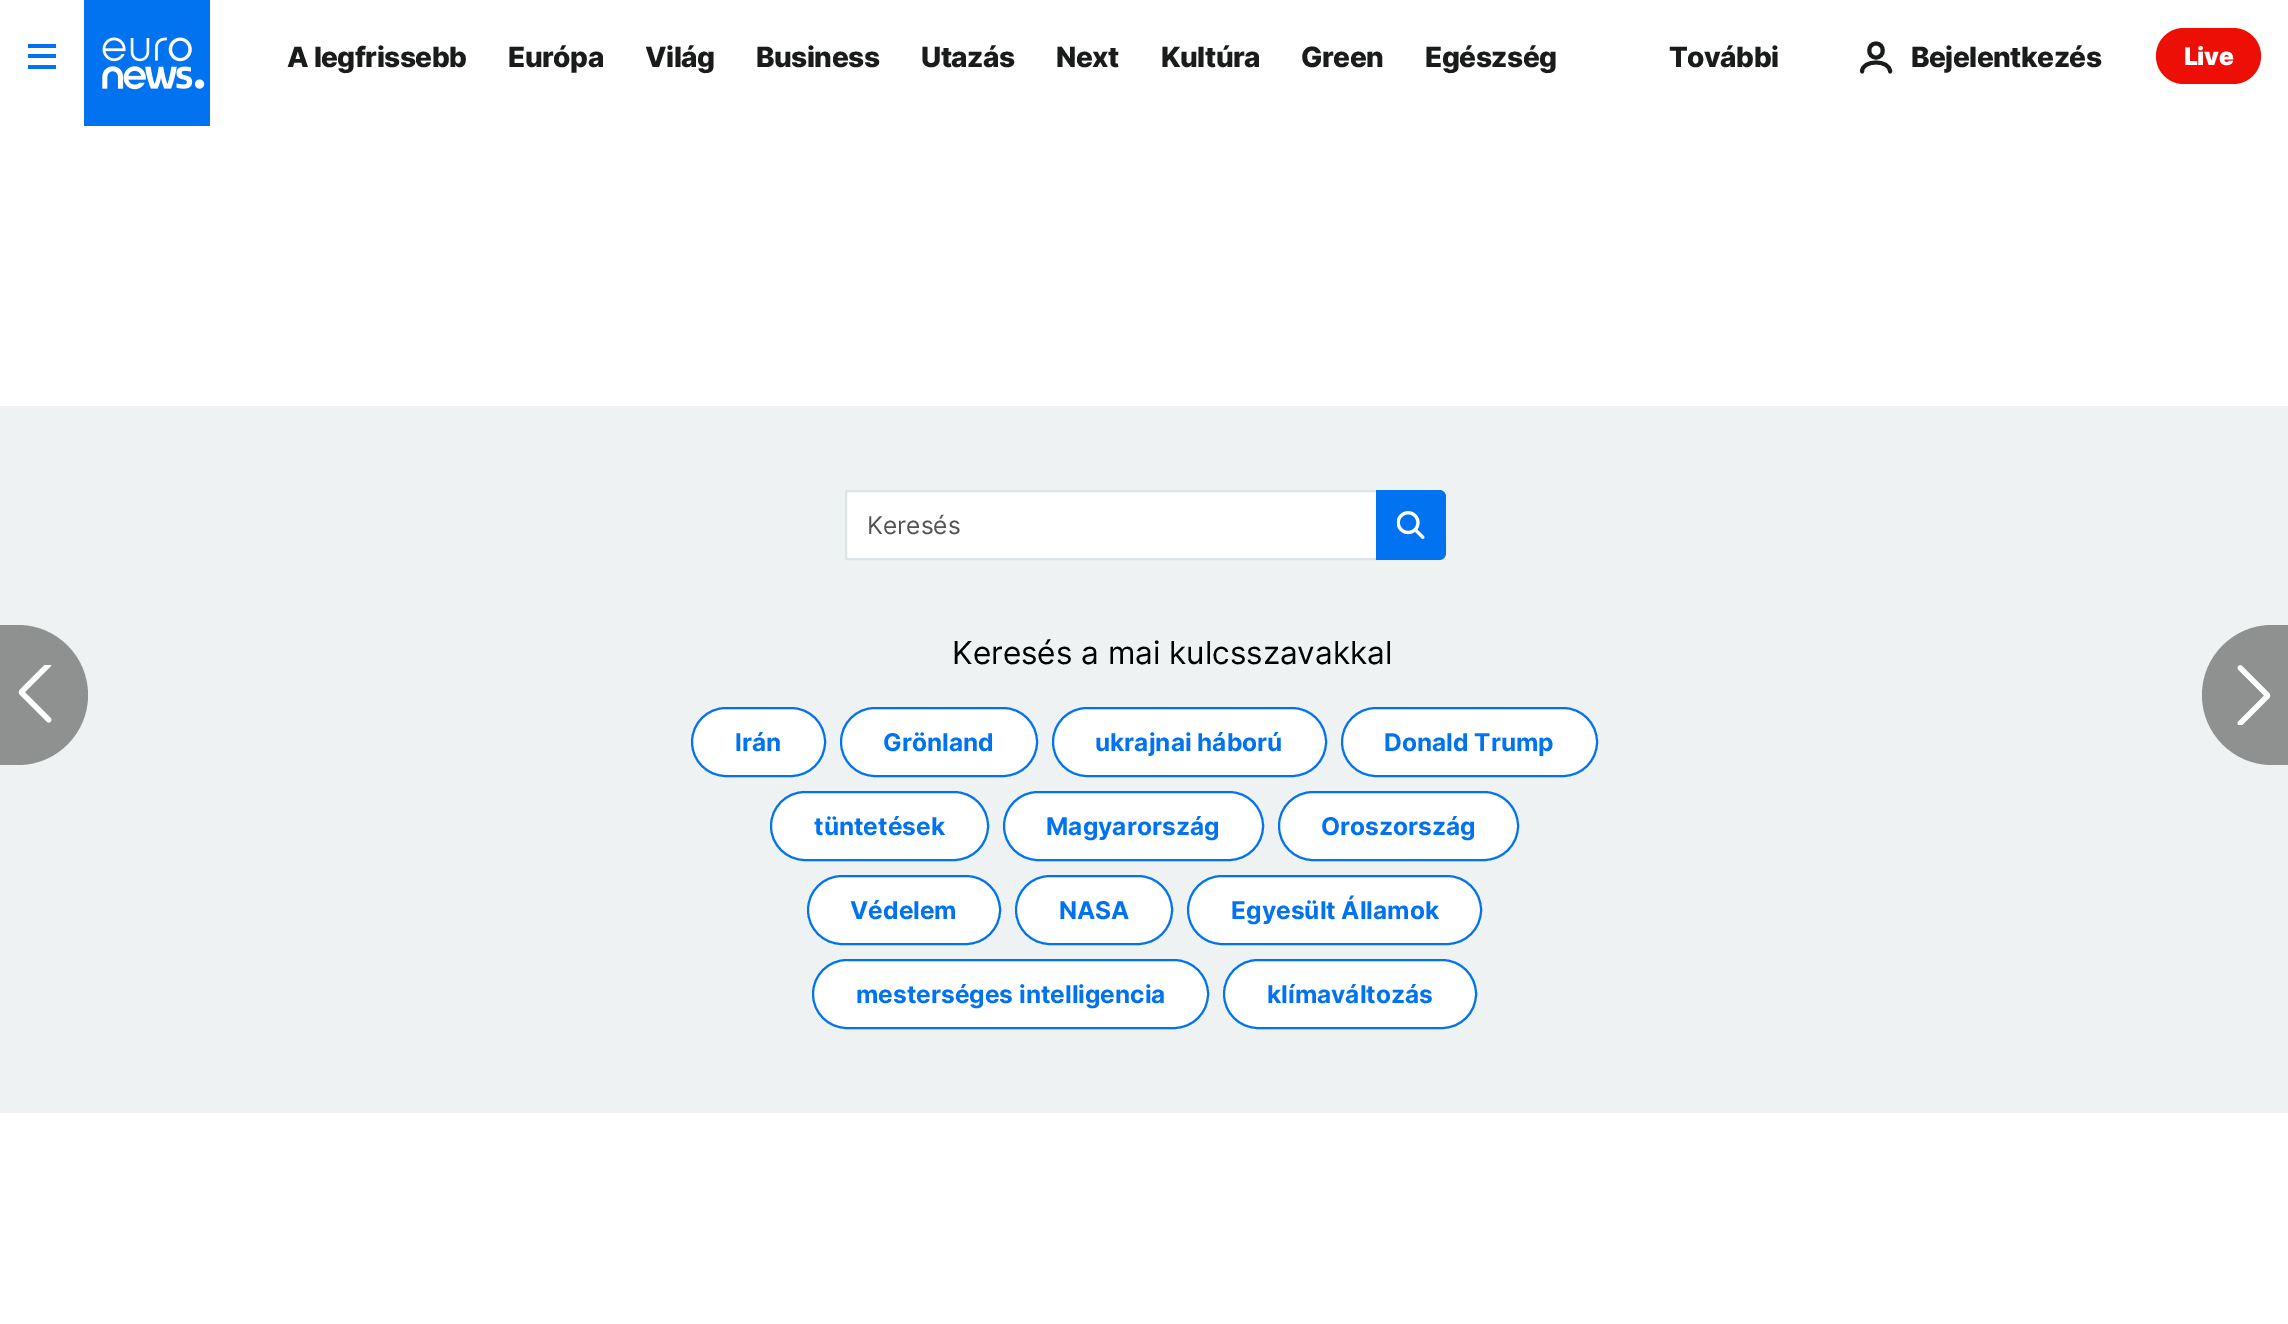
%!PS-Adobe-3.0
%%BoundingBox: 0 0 2288 1324
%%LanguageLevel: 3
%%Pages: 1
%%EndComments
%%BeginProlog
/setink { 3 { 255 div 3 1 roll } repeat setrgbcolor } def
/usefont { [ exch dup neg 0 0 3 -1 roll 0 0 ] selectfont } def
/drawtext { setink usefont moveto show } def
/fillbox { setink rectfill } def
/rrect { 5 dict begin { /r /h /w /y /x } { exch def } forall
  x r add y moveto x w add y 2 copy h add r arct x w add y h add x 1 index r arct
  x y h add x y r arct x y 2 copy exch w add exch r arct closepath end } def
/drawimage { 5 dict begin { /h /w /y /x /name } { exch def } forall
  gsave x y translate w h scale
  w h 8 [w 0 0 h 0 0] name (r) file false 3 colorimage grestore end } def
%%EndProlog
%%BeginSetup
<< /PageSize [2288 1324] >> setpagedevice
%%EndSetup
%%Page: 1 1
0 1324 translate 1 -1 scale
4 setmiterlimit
0 0 2288 1324 255 255 255 fillbox
28 44 28 4 1 114 240 fillbox
28 54 28 4 1 114 240 fillbox
28 65 28 4 1 114 240 fillbox
(assets/img1.rgb) 84 0 126 126 drawimage
/Inter-ExtraBold 28 usefont
26 27 27 setink
287 67 moveto -0.5 0 (A legfrissebb) ashow
508 67 moveto -0.5 0 (Európa) ashow
645 67 moveto -0.5 0 (Világ) ashow
756 67 moveto -0.5 0 (Business) ashow
921 67 moveto -0.5 0 (Utazás) ashow
1056 67 moveto -0.5 0 (Next) ashow
1161 67 moveto -0.5 0 (Kultúra) ashow
1301 67 moveto -0.5 0 (Green) ashow
1425 67 moveto -0.5 0 (Egészség) ashow
1669 67 moveto -0.5 0 (További) ashow
3.9 setlinewidth
1 setlinecap
1 setlinejoin
1862 71.5 moveto 1862 59.5 1890 59.5 1890 71.5 curveto 1876 57.5 moveto 1885 57.5 1885 43.5 1876 43.5 curveto 1867 43.5 1867 57.5 1876 57.5 curveto closepath stroke
1911 67 moveto -0.5 0 (Bejelentkezés) ashow
237 14 5 setink
2156 28 105 56 28 rrect fill
/Inter-Black 24.5 usefont
255 255 255 setink
2184 65 moveto -0.5 0 (Live) ashow
0 406 2288 707 238 242 243 fillbox
255 255 255 setink
846 491 moveto 1439 491 lineto 1442.5 491 1445 493.5 1445 497 curveto 1445 553 lineto 1445 556.5 1442.5 559 1439 559 curveto 846 559 lineto closepath gsave fill grestore
220 228 231 setink
2 setlinewidth
0 setlinecap
0 setlinejoin
stroke
(Keresés) 867 534 /Inter-Regular 24.5 81 82 82 drawtext
1 114 240 setink
1376 490 moveto 1439 490 lineto 1443 490 1446 493 1446 497 curveto 1446 553 lineto 1446 557 1443 560 1439 560 curveto 1376 560 lineto closepath fill
(assets/img2.rgb) 1397 511 28 28 drawimage
(Keresés a mai kulcsszavakkal) 952 664 /Inter-Regular 31.5 0 0 0 drawtext
255 255 255 setink
692 708 133 68 34 rrect gsave fill grestore
1 114 240 setink
stroke
(Irán) 735 751 /Inter-Bold 24.5 1 114 240 drawtext
255 255 255 setink
841 708 196 68 34 rrect gsave fill grestore
1 114 240 setink
stroke
(Grönland) 883 751 /Inter-Bold 24.5 1 114 240 drawtext
255 255 255 setink
1053 708 273 68 34 rrect gsave fill grestore
1 114 240 setink
stroke
(ukrajnai háború) 1095 751 /Inter-Bold 24.5 1 114 240 drawtext
255 255 255 setink
1342 708 255 68 34 rrect gsave fill grestore
1 114 240 setink
stroke
(Donald Trump) 1384 751 /Inter-Bold 24.5 1 114 240 drawtext
255 255 255 setink
771 792 217 68 34 rrect gsave fill grestore
1 114 240 setink
stroke
(tüntetések) 814 835 /Inter-Bold 24.5 1 114 240 drawtext
255 255 255 setink
1004 792 259 68 34 rrect gsave fill grestore
1 114 240 setink
stroke
(Magyarország) 1046 835 /Inter-Bold 24.5 1 114 240 drawtext
255 255 255 setink
1279 792 239 68 34 rrect gsave fill grestore
1 114 240 setink
stroke
(Oroszország) 1321 835 /Inter-Bold 24.5 1 114 240 drawtext
255 255 255 setink
808 876 192 68 34 rrect gsave fill grestore
1 114 240 setink
stroke
(Védelem) 850 919 /Inter-Bold 24.5 1 114 240 drawtext
255 255 255 setink
1016 876 156 68 34 rrect gsave fill grestore
1 114 240 setink
stroke
(NASA) 1059 919 /Inter-Bold 24.5 1 114 240 drawtext
255 255 255 setink
1188 876 293 68 34 rrect gsave fill grestore
1 114 240 setink
stroke
(Egyesült Államok) 1231 919 /Inter-Bold 24.5 1 114 240 drawtext
255 255 255 setink
813 960 395 68 34 rrect gsave fill grestore
1 114 240 setink
stroke
(mesterséges intelligencia) 856 1003 /Inter-Bold 24.5 1 114 240 drawtext
255 255 255 setink
1224 960 252 68 34 rrect gsave fill grestore
1 114 240 setink
stroke
(klímaváltozás) 1267 1003 /Inter-Bold 24.5 1 114 240 drawtext
143 145 145 setink
0 625 moveto 18 625 lineto 56.5 625 88 656.5 88 695 curveto 88 733.5 56.5 765 18 765 curveto 0 765 lineto closepath fill
(assets/img3.rgb) 18 665 34 58 drawimage
2272 625 moveto 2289 625 lineto 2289 765 lineto 2272 765 lineto 2233.5 765 2202 733.5 2202 695 curveto 2202 656.5 2233.5 625 2272 625 curveto closepath fill
(assets/img4.rgb) 2237 665 34 60 drawimage
showpage
%%EOF
